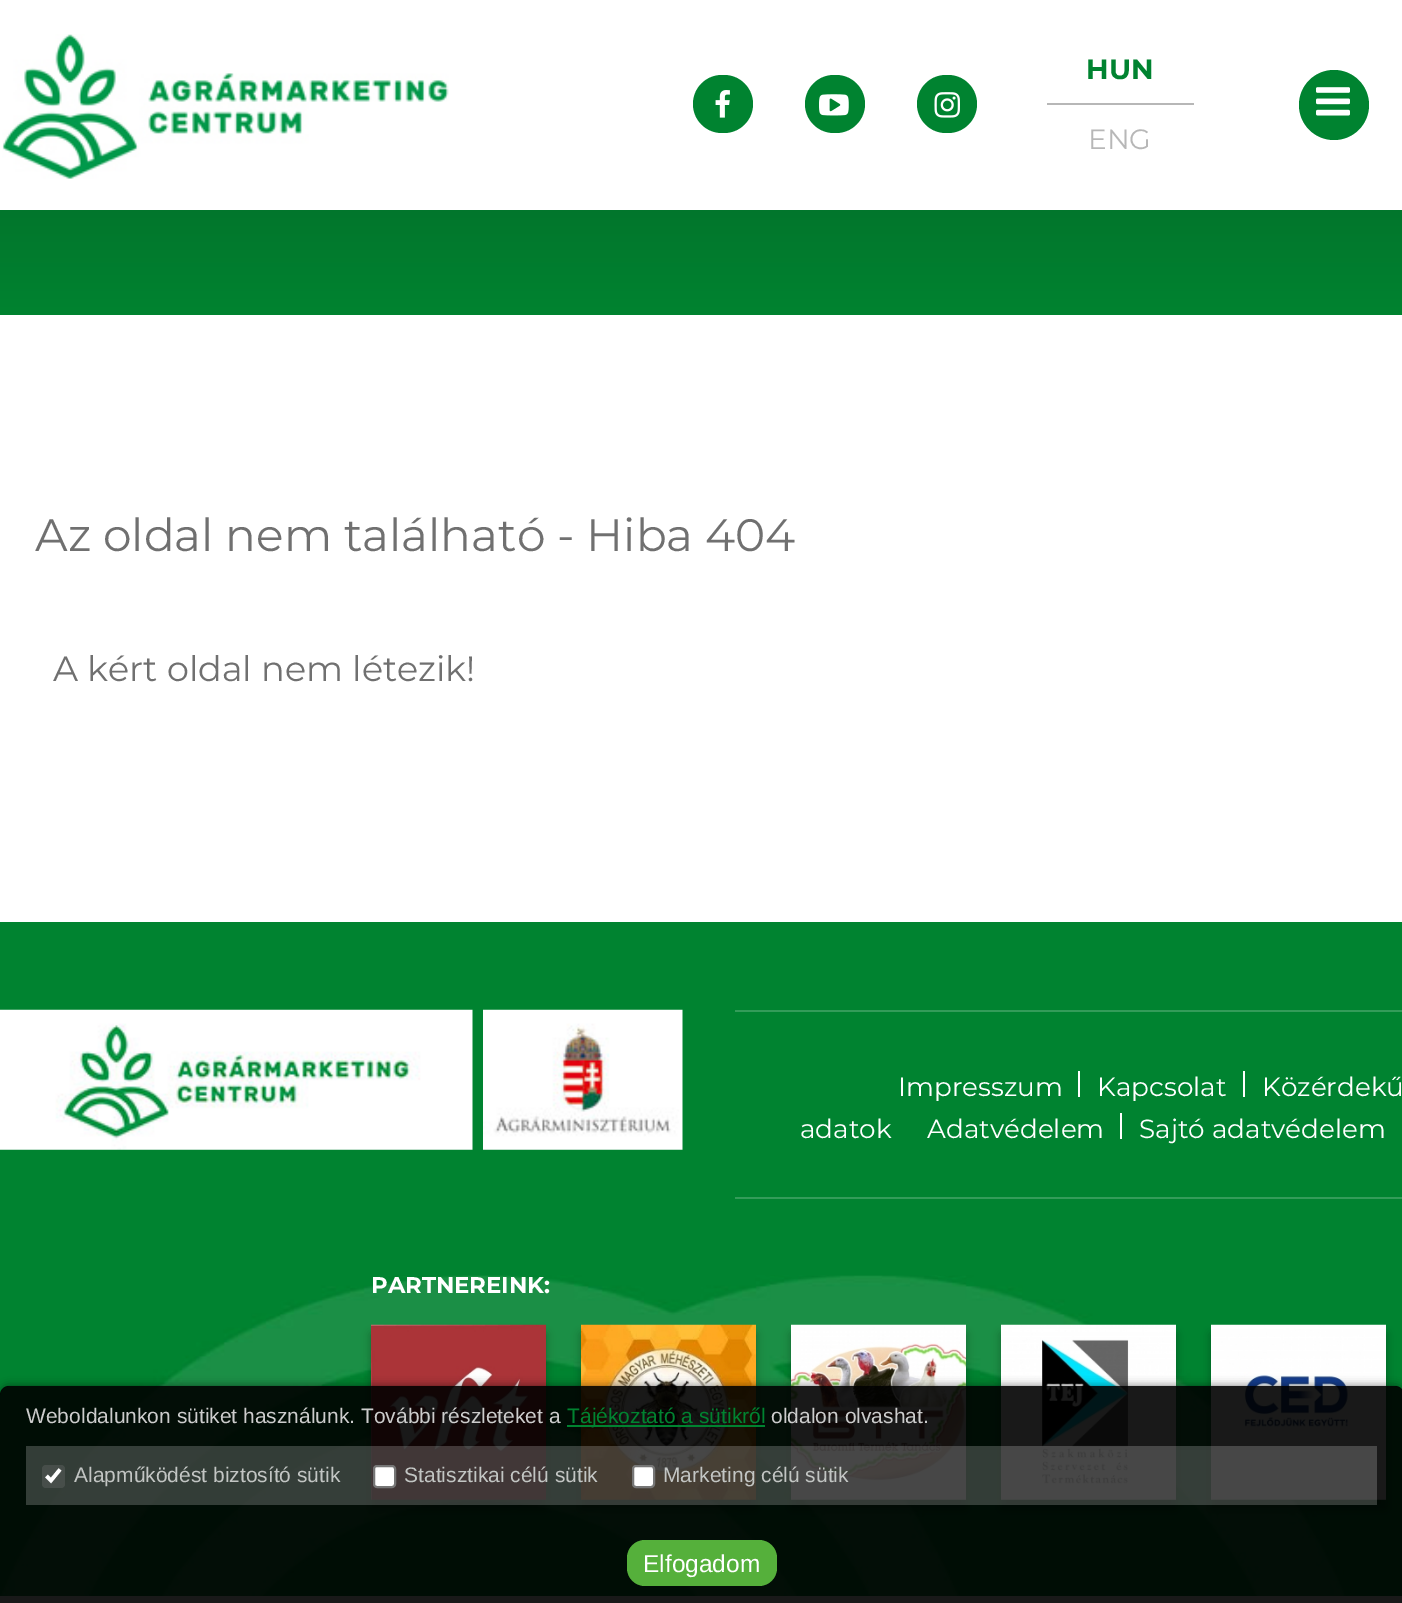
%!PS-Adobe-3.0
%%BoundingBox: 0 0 1402 1603
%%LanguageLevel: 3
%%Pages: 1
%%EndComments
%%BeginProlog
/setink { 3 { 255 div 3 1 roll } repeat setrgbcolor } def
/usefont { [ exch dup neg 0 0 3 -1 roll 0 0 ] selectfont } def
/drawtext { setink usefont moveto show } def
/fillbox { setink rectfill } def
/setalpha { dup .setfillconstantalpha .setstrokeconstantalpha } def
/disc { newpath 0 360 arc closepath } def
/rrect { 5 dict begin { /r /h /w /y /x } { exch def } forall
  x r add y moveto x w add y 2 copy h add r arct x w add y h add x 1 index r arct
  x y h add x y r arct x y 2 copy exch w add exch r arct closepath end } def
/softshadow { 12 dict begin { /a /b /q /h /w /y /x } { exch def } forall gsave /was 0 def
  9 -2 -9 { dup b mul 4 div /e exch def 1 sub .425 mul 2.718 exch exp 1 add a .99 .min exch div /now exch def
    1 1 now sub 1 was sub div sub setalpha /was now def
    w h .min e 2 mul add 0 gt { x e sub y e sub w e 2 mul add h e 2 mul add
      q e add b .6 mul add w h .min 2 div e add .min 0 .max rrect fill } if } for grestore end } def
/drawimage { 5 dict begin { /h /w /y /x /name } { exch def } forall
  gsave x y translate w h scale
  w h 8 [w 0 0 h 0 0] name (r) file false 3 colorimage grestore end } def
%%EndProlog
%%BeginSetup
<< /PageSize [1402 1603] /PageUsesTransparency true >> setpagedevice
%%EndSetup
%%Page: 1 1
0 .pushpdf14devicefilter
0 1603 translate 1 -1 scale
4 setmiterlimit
0 0 1402 1603 255 255 255 fillbox
(assets/img1.rgb) 2 34 447 145 drawimage
0 131 48 setink
693 75 60 58 29 rrect fill
(assets/img2.rgb) 715 90 15 28 drawimage
805 75 60 58 29 rrect fill
(assets/img3.rgb) 819 94 30 22 drawimage
917 75 60 58 29 rrect fill
(assets/img4.rgb) 934 92 26 26 drawimage
1047 103 147 2 183 183 183 fillbox
(HUN) 1086 79 /Montserrat-Bold 28 0 131 48 drawtext
(ENG) 1088 149 /Montserrat-Regular 28 183 183 183 drawtext
0 131 48 setink
1334 105 35 disc fill
(assets/img5.rgb) 1316 87 34 29 drawimage
gsave 0 210 moveto 1402 210 lineto 1402 315 lineto 0 315 lineto closepath clip newpath
<< /ShadingType 2 /ColorSpace /DeviceRGB /Coords [702 210 702 315] /Extend [true true] /Function << /FunctionType 2 /Domain [0 1] /C0 [0.008 0.463 0.173] /C1 [0 0.514 0.188] /N 1 >> >> shfill grestore
(Az oldal nem található - Hiba 404) 35 551 /Montserrat-Regular 45.5 112 112 112 drawtext
(A kért oldal nem létezik!) 53 681 /Montserrat-Regular 35 112 112 112 drawtext
0 922 1402 674 0 131 48 fillbox
(assets/img6.rgb) 0 1275 1346 321 drawimage
(assets/img7.rgb) 0 1009 473 141 drawimage
(assets/img8.rgb) 483 1009 200 141 drawimage
735 1010 667 2 51 156 89 fillbox
735 1197 667 2 51 156 89 fillbox
(Impresszum) 898 1096 /Montserrat-Regular 26.25 255 255 255 drawtext
1078 1071 2 26 255 255 255 fillbox
(Kapcsolat) 1097 1096 /Montserrat-Regular 26.25 255 255 255 drawtext
1243 1071 2 26 255 255 255 fillbox
(Közérdekű) 1262 1096 /Montserrat-Regular 26.25 255 255 255 drawtext
(adatok) 800 1138 /Montserrat-Regular 26.25 255 255 255 drawtext
(Adatvédelem) 927 1138 /Montserrat-Regular 26.25 255 255 255 drawtext
1120 1113 2 26 255 255 255 fillbox
(Sajtó adatvédelem) 1139 1138 /Montserrat-Regular 26.25 255 255 255 drawtext
(PARTNEREINK:) 371 1293 /Montserrat-Bold 22.75 255 255 255 drawtext
0 0 0 setink
371 1334 175 175 0 4.5 0.3 softshadow
(assets/img9.rgb) 371 1324 175 176 drawimage
581 1334 175 175 0 4.5 0.3 softshadow
(assets/img10.rgb) 581 1324 175 176 drawimage
791 1334 175 175 0 4.5 0.3 softshadow
(assets/img11.rgb) 791 1324 175 176 drawimage
1001 1334 175 175 0 4.5 0.3 softshadow
(assets/img12.rgb) 1001 1324 175 176 drawimage
1211 1334 175 175 0 4.5 0.3 softshadow
(assets/img13.rgb) 1211 1324 175 176 drawimage
gsave
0 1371 moveto 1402 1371 lineto 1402 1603 lineto 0 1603 lineto closepath 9 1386 moveto 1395 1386 lineto 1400 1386 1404 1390 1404 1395 curveto 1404 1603 lineto 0 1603 lineto 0 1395 lineto 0 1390 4 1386 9 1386 curveto closepath eoclip newpath
0 1386 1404 217 9 4.5 0.5 softshadow
grestore
0.9 setalpha
9 1386 moveto 1395 1386 lineto 1400 1386 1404 1390 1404 1395 curveto 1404 1603 lineto 0 1603 lineto 0 1395 lineto 0 1390 4 1386 9 1386 curveto closepath fill
1 setalpha
(Weboldalunkon sütiket használunk. További részleteket a) 26 1423 /LiberationSans-Regular 21 204 204 204 drawtext
567 1425 198 2 0 131 48 fillbox
(Tájékoztató a sütikről) 567 1423 /LiberationSans-Regular 21 0 131 48 drawtext
(oldalon olvashat.) 771 1423 /LiberationSans-Regular 21 204 204 204 drawtext
0.2 setalpha
26 1446 1351 59 255 255 255 fillbox
1 setalpha
71 78 74 setink
42 1465 23 23 4 rrect fill
255 255 255 setink
3.6 setlinewidth
46.5 1476 moveto 51 1480.5 lineto 60 1469.5 lineto stroke
(Alapműködést biztosító sütik) 74 1482 /LiberationSans-Regular 21 194 197 195 drawtext
255 255 255 setink
374 1466 21 21 3 rrect gsave fill grestore
118 118 118 setink
2 setlinewidth
stroke
(Statisztikai célú sütik) 404 1482 /LiberationSans-Regular 21 194 197 195 drawtext
255 255 255 setink
633 1466 21 21 3 rrect gsave fill grestore
118 118 118 setink
stroke
(Marketing célú sütik) 663 1482 /LiberationSans-Regular 21 194 197 195 drawtext
85 176 59 setink
627 1540 150 46 18 rrect fill
(Elfogadom) 643 1572 /LiberationSans-Regular 24.5 255 255 255 drawtext
.poppdf14devicefilter showpage
%%EOF
